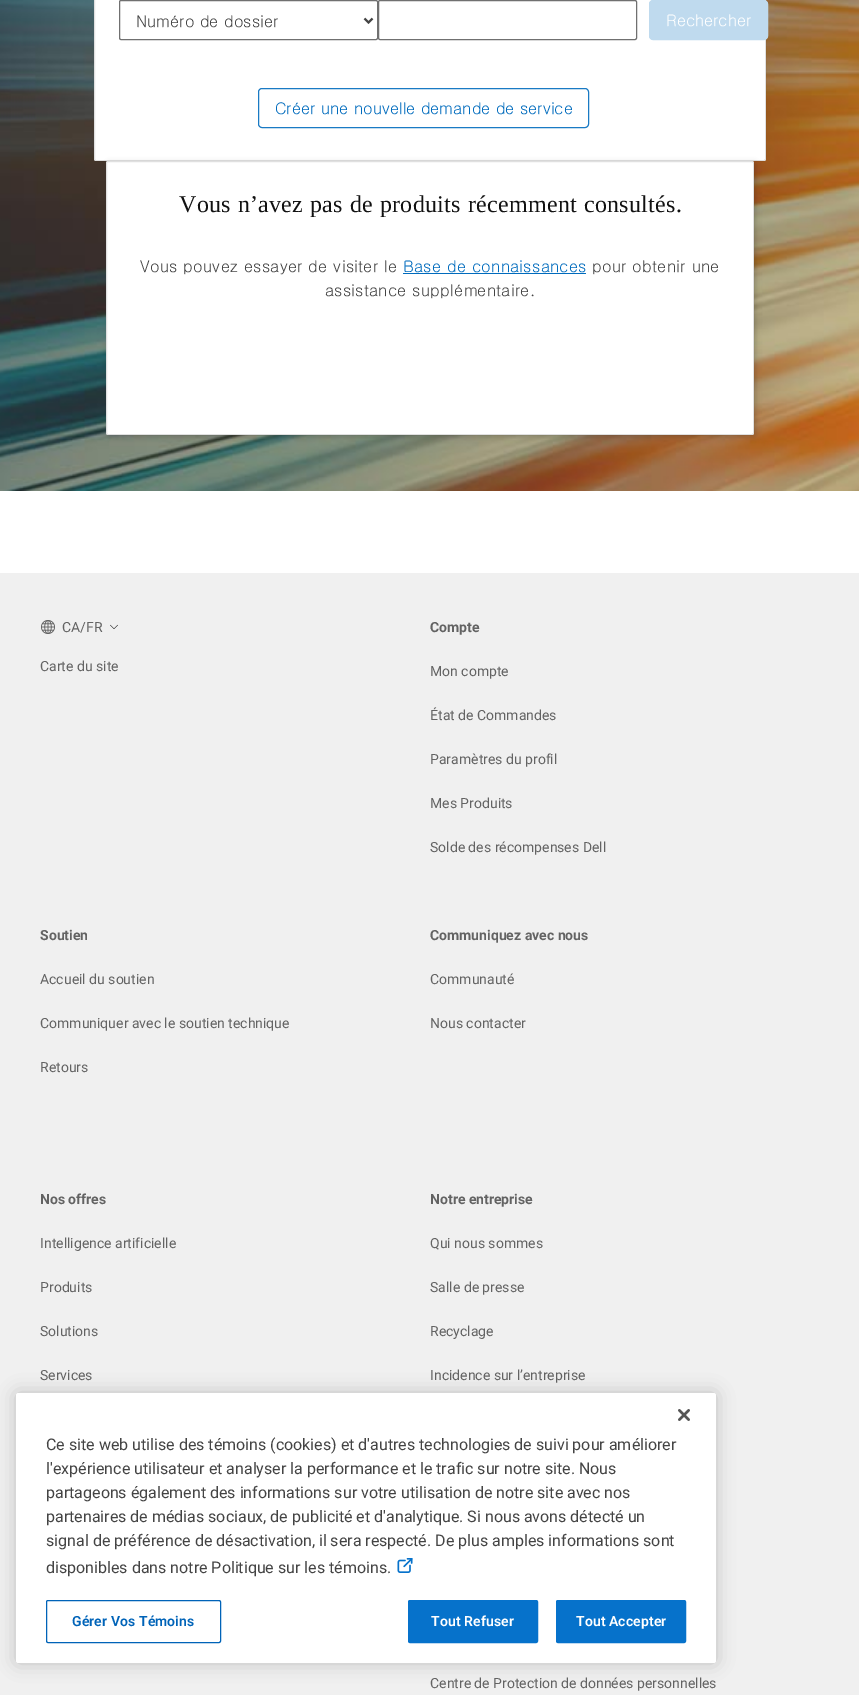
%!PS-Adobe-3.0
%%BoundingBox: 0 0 859 1695
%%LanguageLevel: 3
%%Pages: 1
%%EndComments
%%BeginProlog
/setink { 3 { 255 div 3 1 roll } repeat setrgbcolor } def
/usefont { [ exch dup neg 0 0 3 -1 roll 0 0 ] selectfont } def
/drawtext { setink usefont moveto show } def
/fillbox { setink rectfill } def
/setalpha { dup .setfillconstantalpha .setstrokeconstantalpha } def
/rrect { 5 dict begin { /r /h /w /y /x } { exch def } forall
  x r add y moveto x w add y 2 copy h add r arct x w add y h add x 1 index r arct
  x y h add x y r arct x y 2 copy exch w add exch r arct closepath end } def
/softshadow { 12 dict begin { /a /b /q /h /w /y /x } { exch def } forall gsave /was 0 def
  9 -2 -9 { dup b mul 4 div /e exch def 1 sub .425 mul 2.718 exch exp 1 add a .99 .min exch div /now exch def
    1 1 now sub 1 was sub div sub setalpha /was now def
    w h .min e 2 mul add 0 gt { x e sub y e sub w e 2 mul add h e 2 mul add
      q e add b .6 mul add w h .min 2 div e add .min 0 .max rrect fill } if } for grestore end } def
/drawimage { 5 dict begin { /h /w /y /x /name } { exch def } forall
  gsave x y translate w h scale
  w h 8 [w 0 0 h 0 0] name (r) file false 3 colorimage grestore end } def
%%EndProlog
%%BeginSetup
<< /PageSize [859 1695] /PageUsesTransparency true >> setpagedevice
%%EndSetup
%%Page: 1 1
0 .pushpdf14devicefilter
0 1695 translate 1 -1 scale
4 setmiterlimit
0 0 859 1695 255 255 255 fillbox
(assets/img1.rgb) 0 0 859 491 drawimage
94 -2 672 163 2 rrect fill
0.12 setalpha
0 0 0 setink
94.5 -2.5 671 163 1.5 rrect stroke
1 setalpha
112 112 112 setink
119.5 0.5 258 39 1.5 rrect stroke
68 68 68 setink
2 setlinewidth
364.5 18.5 moveto 368.5 22.5 lineto 372.5 18.5 lineto stroke
(Numéro de dossier) 136 27 /Gulim-Regular 16 68 68 68 drawtext
112 112 112 setink
1 setlinewidth
378.5 0.5 258 39 1.5 rrect stroke
191 218 238 setink
649.5 0.5 118 39 3.5 rrect gsave fill grestore
stroke
(Rechercher) 666 26 /Gulim-Regular 16 255 255 255 drawtext
26 122 196 setink
258.5 88.5 330 39 3.5 rrect stroke
(Créer une nouvelle demande de service) 275 114 /Gulim-Regular 16 0 107 189 drawtext
17 17 17 setink
108 163 648 274 2 3 0.2 softshadow
255 255 255 setink
106 161 648 274 2 rrect fill
0.12 setalpha
0 0 0 setink
106.5 161.5 647 273 1.5 rrect stroke
/LiberationSerif-Regular 24 usefont
1 setalpha
17 17 17 setink
179 212 moveto 0.5 0 32 0.3 0 (Vous n’avez pas de produits récemment consultés.) awidthshow
/Gulim-Regular 16 usefont
68 68 68 setink
140 272 moveto 0.25 0 32 0.2 0 (Vous pouvez essayer de visiter le) awidthshow
0 107 189 setink
403 272 moveto 0.25 0 32 0.2 0 (Base de connaissances) awidthshow
403 273 183 1 0 107 189 fillbox
68 68 68 setink
592 272 moveto 0.25 0 32 0.2 0 (pour obtenir une) awidthshow
325 296 moveto 0.25 0 32 0.2 0 (assistance supplémentaire.) awidthshow
0 573 859 1122 240 240 240 fillbox
(assets/img2.rgb) 41 620 14 14 drawimage
(CA/FR) 62 632 /Roboto-Regular 14 99 99 99 drawtext
(assets/img3.rgb) 110 624 8 5 drawimage
(Carte du site) 40 671 /Roboto-Regular 14 99 99 99 drawtext
(Compte) 430 632 /Roboto-Bold 14 99 99 99 drawtext
(Mon compte) 430 676 /Roboto-Regular 14 99 99 99 drawtext
(État de Commandes) 430 720 /Roboto-Regular 14 99 99 99 drawtext
(Paramètres du profil) 430 764 /Roboto-Regular 14 99 99 99 drawtext
(Mes Produits) 430 808 /Roboto-Regular 14 99 99 99 drawtext
(Solde des récompenses Dell) 430 852 /Roboto-Regular 14 99 99 99 drawtext
(Soutien) 40 940 /Roboto-Bold 14 99 99 99 drawtext
(Accueil du soutien) 40 984 /Roboto-Regular 14 99 99 99 drawtext
(Communiquer avec le soutien technique) 40 1028 /Roboto-Regular 14 99 99 99 drawtext
(Retours) 40 1072 /Roboto-Regular 14 99 99 99 drawtext
(Communiquez avec nous) 430 940 /Roboto-Bold 14 99 99 99 drawtext
(Communauté) 430 984 /Roboto-Regular 14 99 99 99 drawtext
(Nous contacter) 430 1028 /Roboto-Regular 14 99 99 99 drawtext
(Nos offres) 40 1204 /Roboto-Bold 14 99 99 99 drawtext
(Intelligence artificielle) 40 1248 /Roboto-Regular 14 99 99 99 drawtext
(Produits) 40 1292 /Roboto-Regular 14 99 99 99 drawtext
(Solutions) 40 1336 /Roboto-Regular 14 99 99 99 drawtext
(Services) 40 1380 /Roboto-Regular 14 99 99 99 drawtext
(Notre entreprise) 430 1204 /Roboto-Bold 14 99 99 99 drawtext
(Qui nous sommes) 430 1248 /Roboto-Regular 14 99 99 99 drawtext
(Salle de presse) 430 1292 /Roboto-Regular 14 99 99 99 drawtext
(Recyclage) 430 1336 /Roboto-Regular 14 99 99 99 drawtext
(Incidence sur l’entreprise) 430 1380 /Roboto-Regular 14 99 99 99 drawtext
(Centre de Protection de données personnelles) 430 1688 /Roboto-Regular 14 99 99 99 drawtext
0 0 0 setink
16 1393 700 270 2.5 9 0.2 softshadow
255 255 255 setink
16 1393 700 270 2.5 rrect fill
(assets/img4.rgb) 678 1409 12 12 drawimage
(Ce site web utilise des témoins \(cookies\) et d'autres technologies de suivi pour améliorer) 46 1450 /Roboto-Regular 16 68 68 68 drawtext
(l'expérience utilisateur et analyser la performance et le trafic sur notre site. Nous) 46 1474 /Roboto-Regular 16 68 68 68 drawtext
(partageons également des informations sur votre utilisation de notre site avec nos) 46 1498 /Roboto-Regular 16 68 68 68 drawtext
(partenaires de médias sociaux, de publicité et d'analytique. Si nous avons détecté un) 46 1522 /Roboto-Regular 16 68 68 68 drawtext
(signal de préférence de désactivation, il sera respecté. De plus amples informations sont) 46 1546 /Roboto-Regular 16 68 68 68 drawtext
(disponibles dans notre Politique sur les témoins.) 46 1573 /Roboto-Regular 16 68 68 68 drawtext
(assets/img5.rgb) 397 1558 16 15 drawimage
0 99 184 setink
46.5 1600.5 174 42 1.5 rrect stroke
/Roboto-SemiBold 14 usefont
72 1626 moveto 0.1 0 (Gérer Vos Témoins) ashow
6 114 203 setink
408.5 1600.5 129 42 1.5 rrect gsave fill grestore
stroke
255 255 255 setink
431 1626 moveto 0.1 0 (Tout Refuser) ashow
6 114 203 setink
556.5 1600.5 129 42 1.5 rrect gsave fill grestore
stroke
255 255 255 setink
576 1626 moveto 0.1 0 (Tout Accepter) ashow
.poppdf14devicefilter showpage
%%EOF
